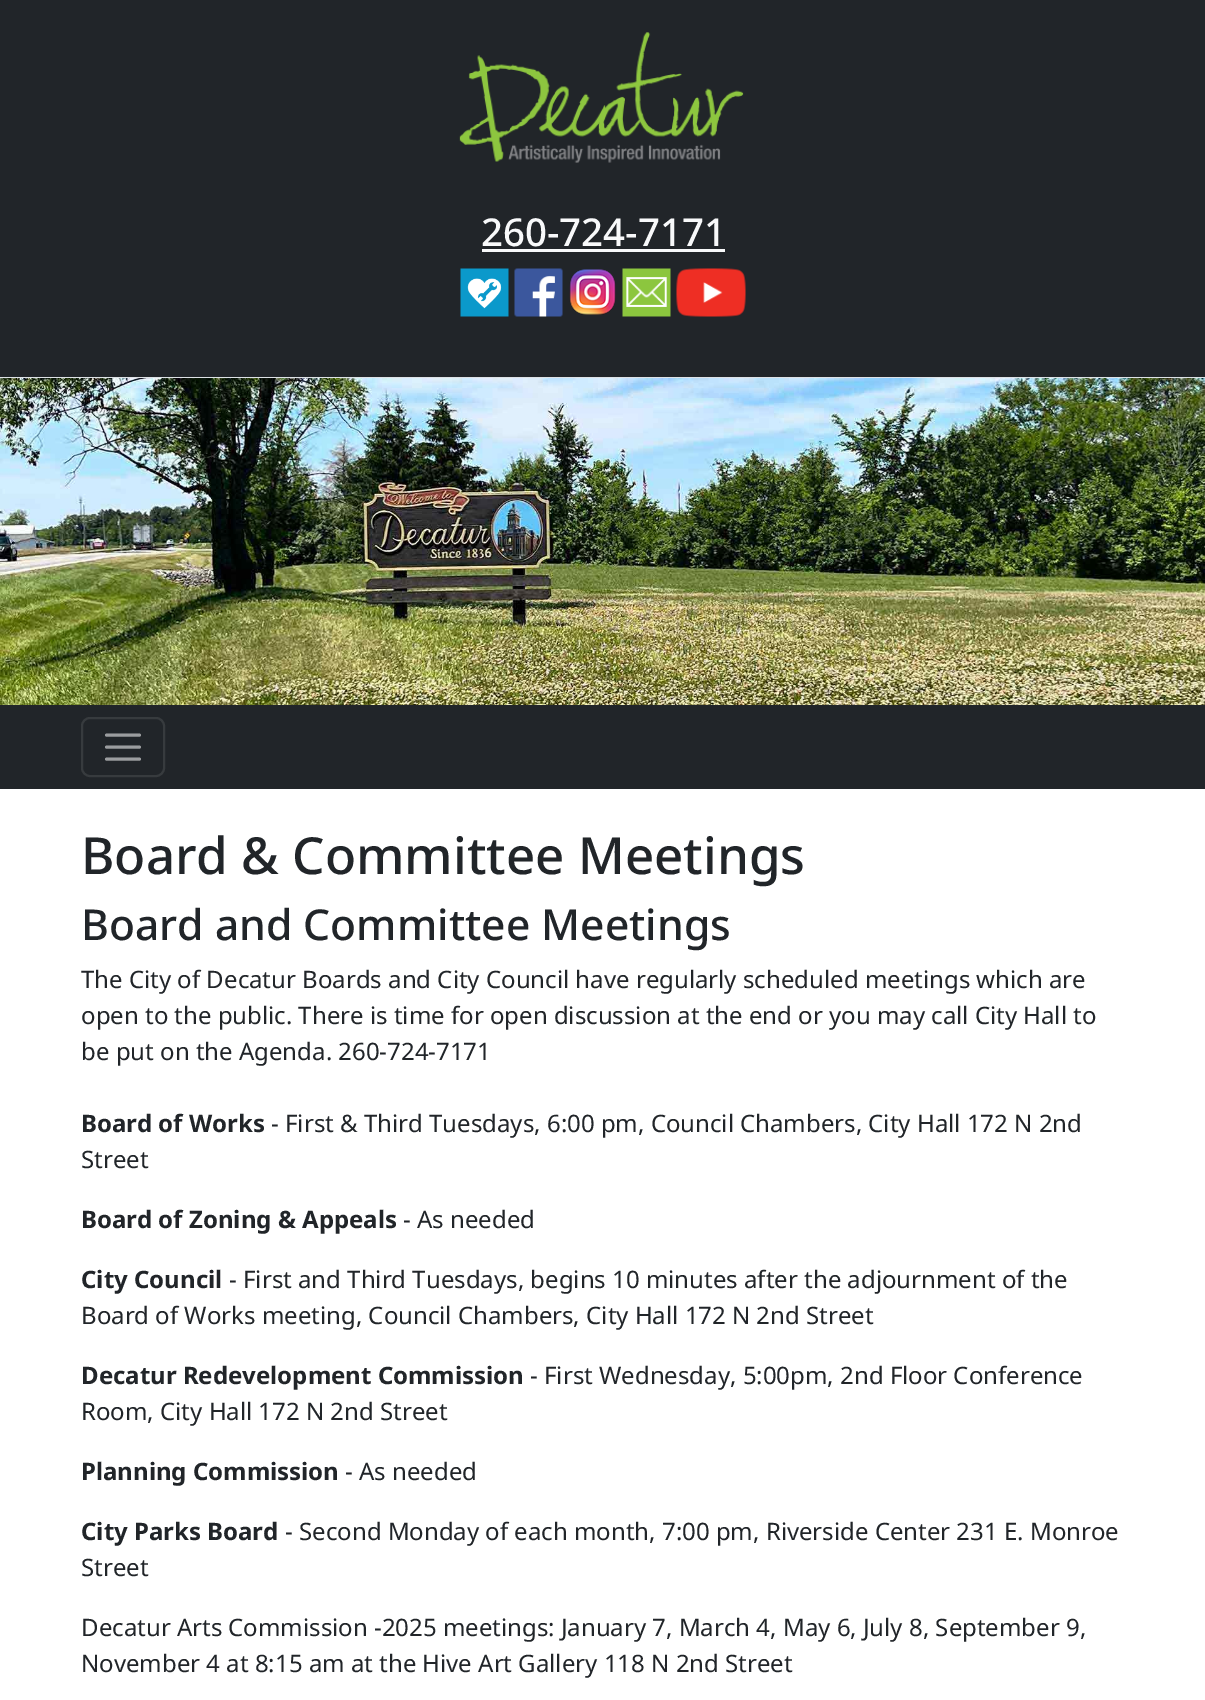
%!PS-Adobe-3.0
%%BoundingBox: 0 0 1205 1700
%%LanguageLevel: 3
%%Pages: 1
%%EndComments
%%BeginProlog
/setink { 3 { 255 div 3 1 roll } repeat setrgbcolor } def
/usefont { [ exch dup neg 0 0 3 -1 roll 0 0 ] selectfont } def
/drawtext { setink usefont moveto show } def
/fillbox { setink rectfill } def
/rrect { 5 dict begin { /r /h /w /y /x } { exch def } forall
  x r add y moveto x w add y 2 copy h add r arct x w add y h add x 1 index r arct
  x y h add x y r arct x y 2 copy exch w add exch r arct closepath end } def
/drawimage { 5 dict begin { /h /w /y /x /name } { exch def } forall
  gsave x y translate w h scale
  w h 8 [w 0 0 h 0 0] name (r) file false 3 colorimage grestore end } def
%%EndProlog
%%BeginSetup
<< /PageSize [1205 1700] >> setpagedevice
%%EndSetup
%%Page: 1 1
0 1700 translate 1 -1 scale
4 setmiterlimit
0 0 1205 1700 255 255 255 fillbox
0 0 1205 377 33 37 41 fillbox
0 377 1205 1 222 226 230 fillbox
(assets/img1.rgb) 459 32 285 131 drawimage
(260-724-7171) 481 246 /NotoSans-Medium 38.5 248 249 250 drawtext
482 249 243 3 248 249 250 fillbox
(assets/img2.rgb) 460 268 49 49 drawimage
(assets/img3.rgb) 514 268 49 49 drawimage
(assets/img4.rgb) 569 269 47 46 drawimage
(assets/img5.rgb) 622 268 49 49 drawimage
(assets/img6.rgb) 676 268 70 49 drawimage
(assets/img7.rgb) 0 378 1205 327 drawimage
0 705 1205 84 33 37 41 fillbox
55 59 62 setink
2 setlinewidth
82 718 82 58 8 rrect stroke
155 157 159 setink
3 setlinewidth
1 setlinecap
106.5 735 moveto 139.5 735 lineto 106.5 747 moveto 139.5 747 lineto 106.5 759 moveto 139.5 759 lineto stroke
(Board & Committee Meetings) 81 874 /NotoSans-Medium 51.1 33 37 41 drawtext
(Board and Committee Meetings) 81 940 /NotoSans-Medium 42.6 33 37 41 drawtext
(The City of Decatur Boards and City Council have regularly scheduled meetings which are) 81 988 /NotoSans-Regular 24 33 37 41 drawtext
(open to the public. There is time for open discussion at the end or you may call City Hall to) 81 1024 /NotoSans-Regular 24 33 37 41 drawtext
(be put on the Agenda. 260-724-7171) 81 1060 /NotoSans-Regular 24 33 37 41 drawtext
(Board of Works) 81 1132 /NotoSans-Bold 24 33 37 41 drawtext
(- First & Third Tuesdays, 6:00 pm, Council Chambers, City Hall 172 N 2nd) 271 1132 /NotoSans-Regular 24 33 37 41 drawtext
(Street) 81 1168 /NotoSans-Regular 24 33 37 41 drawtext
(Board of Zoning & Appeals) 81 1228 /NotoSans-Bold 24 33 37 41 drawtext
(- As needed) 403 1228 /NotoSans-Regular 24 33 37 41 drawtext
(City Council) 81 1288 /NotoSans-Bold 24 33 37 41 drawtext
(- First and Third Tuesdays, begins 10 minutes after the adjournment of the) 229 1288 /NotoSans-Regular 24 33 37 41 drawtext
(Board of Works meeting, Council Chambers, City Hall 172 N 2nd Street) 81 1324 /NotoSans-Regular 24 33 37 41 drawtext
(Decatur Redevelopment Commission) 81 1384 /NotoSans-Bold 24 33 37 41 drawtext
(- First Wednesday, 5:00pm, 2nd Floor Conference) 530 1384 /NotoSans-Regular 24 33 37 41 drawtext
(Room, City Hall 172 N 2nd Street) 81 1420 /NotoSans-Regular 24 33 37 41 drawtext
(Planning Commission) 81 1480 /NotoSans-Bold 24 33 37 41 drawtext
(- As needed) 345 1480 /NotoSans-Regular 24 33 37 41 drawtext
(City Parks Board) 81 1540 /NotoSans-Bold 24 33 37 41 drawtext
(- Second Monday of each month, 7:00 pm, Riverside Center 231 E. Monroe) 285 1540 /NotoSans-Regular 24 33 37 41 drawtext
(Street) 81 1576 /NotoSans-Regular 24 33 37 41 drawtext
(Decatur Arts Commission -2025 meetings: January 7, March 4, May 6, July 8, September 9,) 81 1636 /NotoSans-Regular 24 33 37 41 drawtext
(November 4 at 8:15 am at the Hive Art Gallery 118 N 2nd Street) 81 1672 /NotoSans-Regular 24 33 37 41 drawtext
showpage
%%EOF
